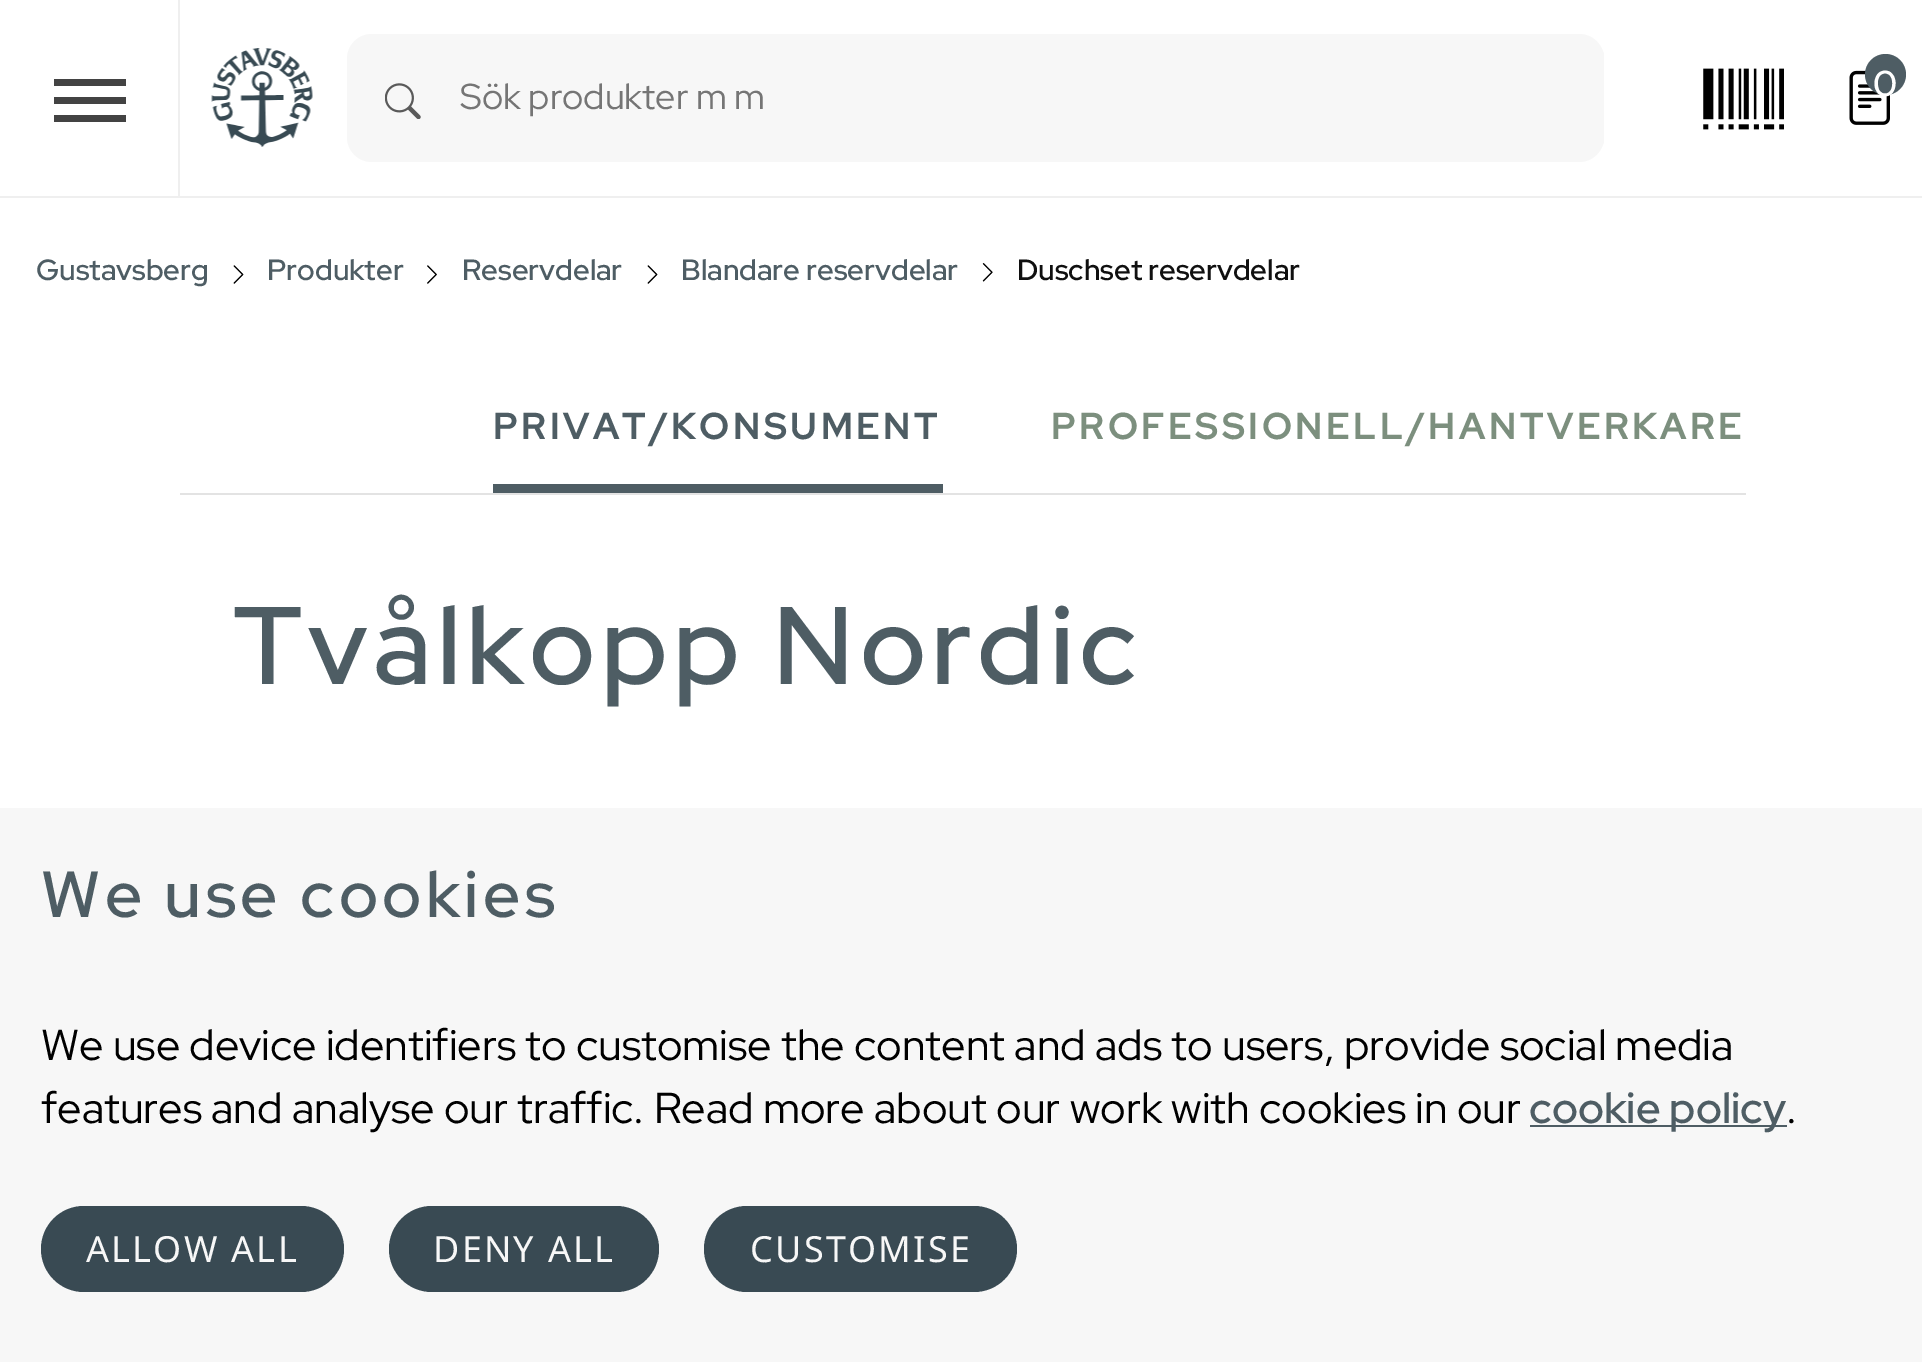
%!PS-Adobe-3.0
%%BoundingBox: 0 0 1922 1362
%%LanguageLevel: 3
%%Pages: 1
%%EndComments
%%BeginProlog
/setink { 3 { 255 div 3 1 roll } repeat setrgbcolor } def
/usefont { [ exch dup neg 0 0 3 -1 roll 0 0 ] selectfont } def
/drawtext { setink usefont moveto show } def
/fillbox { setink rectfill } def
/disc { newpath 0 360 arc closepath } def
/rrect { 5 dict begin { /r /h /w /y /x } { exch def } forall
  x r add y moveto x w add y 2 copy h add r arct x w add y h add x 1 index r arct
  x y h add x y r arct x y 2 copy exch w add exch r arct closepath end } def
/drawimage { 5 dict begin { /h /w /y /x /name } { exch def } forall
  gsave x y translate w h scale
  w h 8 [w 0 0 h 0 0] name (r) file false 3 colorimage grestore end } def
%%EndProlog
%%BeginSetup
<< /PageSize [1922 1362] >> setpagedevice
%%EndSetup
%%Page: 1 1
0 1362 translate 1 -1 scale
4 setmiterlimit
0 0 1922 1362 255 255 255 fillbox
0 196 1922 2 239 239 239 fillbox
178 0 2 196 239 239 239 fillbox
54 97 72 7 67 67 67 fillbox
54 79 72 7 67 67 67 fillbox
54 115 72 7 67 67 67 fillbox
(assets/img1.rgb) 211 48 102 99 drawimage
247 247 247 setink
347 34 1257 128 25 rrect fill
(assets/img2.rgb) 385 83 36 36 drawimage
459 45 moveto 1593 45 lineto 1599 45 1604 50 1604 56 curveto 1604 140 lineto 1604 146 1599 151 1593 151 curveto 459 151 lineto closepath fill
(Sök produkter m m) 460 109 /RedHatDisplay-Regular 36 117 117 117 drawtext
(assets/img3.rgb) 1703 68 81 62 drawimage
(assets/img4.rgb) 1849 70 41 55 drawimage
78 93 100 setink
1885.5 74.5 20.5 disc fill
(0) 1873 96 /RedHatDisplay-Medium 36 255 255 255 drawtext
(Gustavsberg) 36 280 /RedHatDisplay-Medium 29.25 78 93 100 drawtext
(assets/img5.rgb) 233 265 11 19 drawimage
(Produkter) 267 280 /RedHatDisplay-Medium 29.25 78 93 100 drawtext
(assets/img6.rgb) 427 265 10 19 drawimage
(Reservdelar) 462 280 /RedHatDisplay-Medium 29.25 78 93 100 drawtext
(assets/img5.rgb) 647 265 11 19 drawimage
(Blandare reservdelar) 681 280 /RedHatDisplay-Medium 29.25 78 93 100 drawtext
(assets/img7.rgb) 982 263 11 19 drawimage
(Duschset reservdelar) 1017 280 /RedHatDisplay-Medium 29.25 16 16 16 drawtext
180 493 1566 2 227 227 227 fillbox
/RedHatDisplay-Bold 36 usefont
78 93 100 setink
493 439 moveto 4.5 0 (PRIVAT/KONSUMENT) ashow
493 484 450 9 78 93 100 fillbox
124 143 126 setink
1051 439 moveto 4.5 0 (PROFESSIONELL/HANTVERKARE) ashow
/RedHatDisplay-Medium 110 usefont
78 93 100 setink
233 684 moveto 5.4 0 (Tvålkopp Nordic) ashow
0 808 1922 554 247 247 247 fillbox
/RedHatDisplay-Medium 65 usefont
78 93 100 setink
41 917 moveto 4.5 0 (We use cookies) ashow
(We use device identifiers to customise the content and ads to users, provide social media) 41 1060 /RedHatDisplay-Regular 43.2 0 0 0 drawtext
(features and analyse our traffic. Read more about our work with cookies in our) 41 1123 /RedHatDisplay-Regular 43.2 0 0 0 drawtext
1530 1125 257 2 78 93 100 fillbox
(cookie policy) 1529 1123 /RedHatDisplay-Medium 43.2 78 93 100 drawtext
(.) 1786 1123 /RedHatDisplay-Regular 43.2 0 0 0 drawtext
57 74 83 setink
41 1206 303 86 43 rrect fill
/NotoSans-Regular 36 usefont
247 247 247 setink
86 1262 moveto 2.25 0 (ALLOW ALL) ashow
57 74 83 setink
389 1206 270 86 43 rrect fill
247 247 247 setink
433 1262 moveto 2.25 0 (DENY ALL) ashow
57 74 83 setink
704 1206 313 86 43 rrect fill
247 247 247 setink
750 1262 moveto 2.25 0 (CUSTOMISE) ashow
showpage
%%EOF
